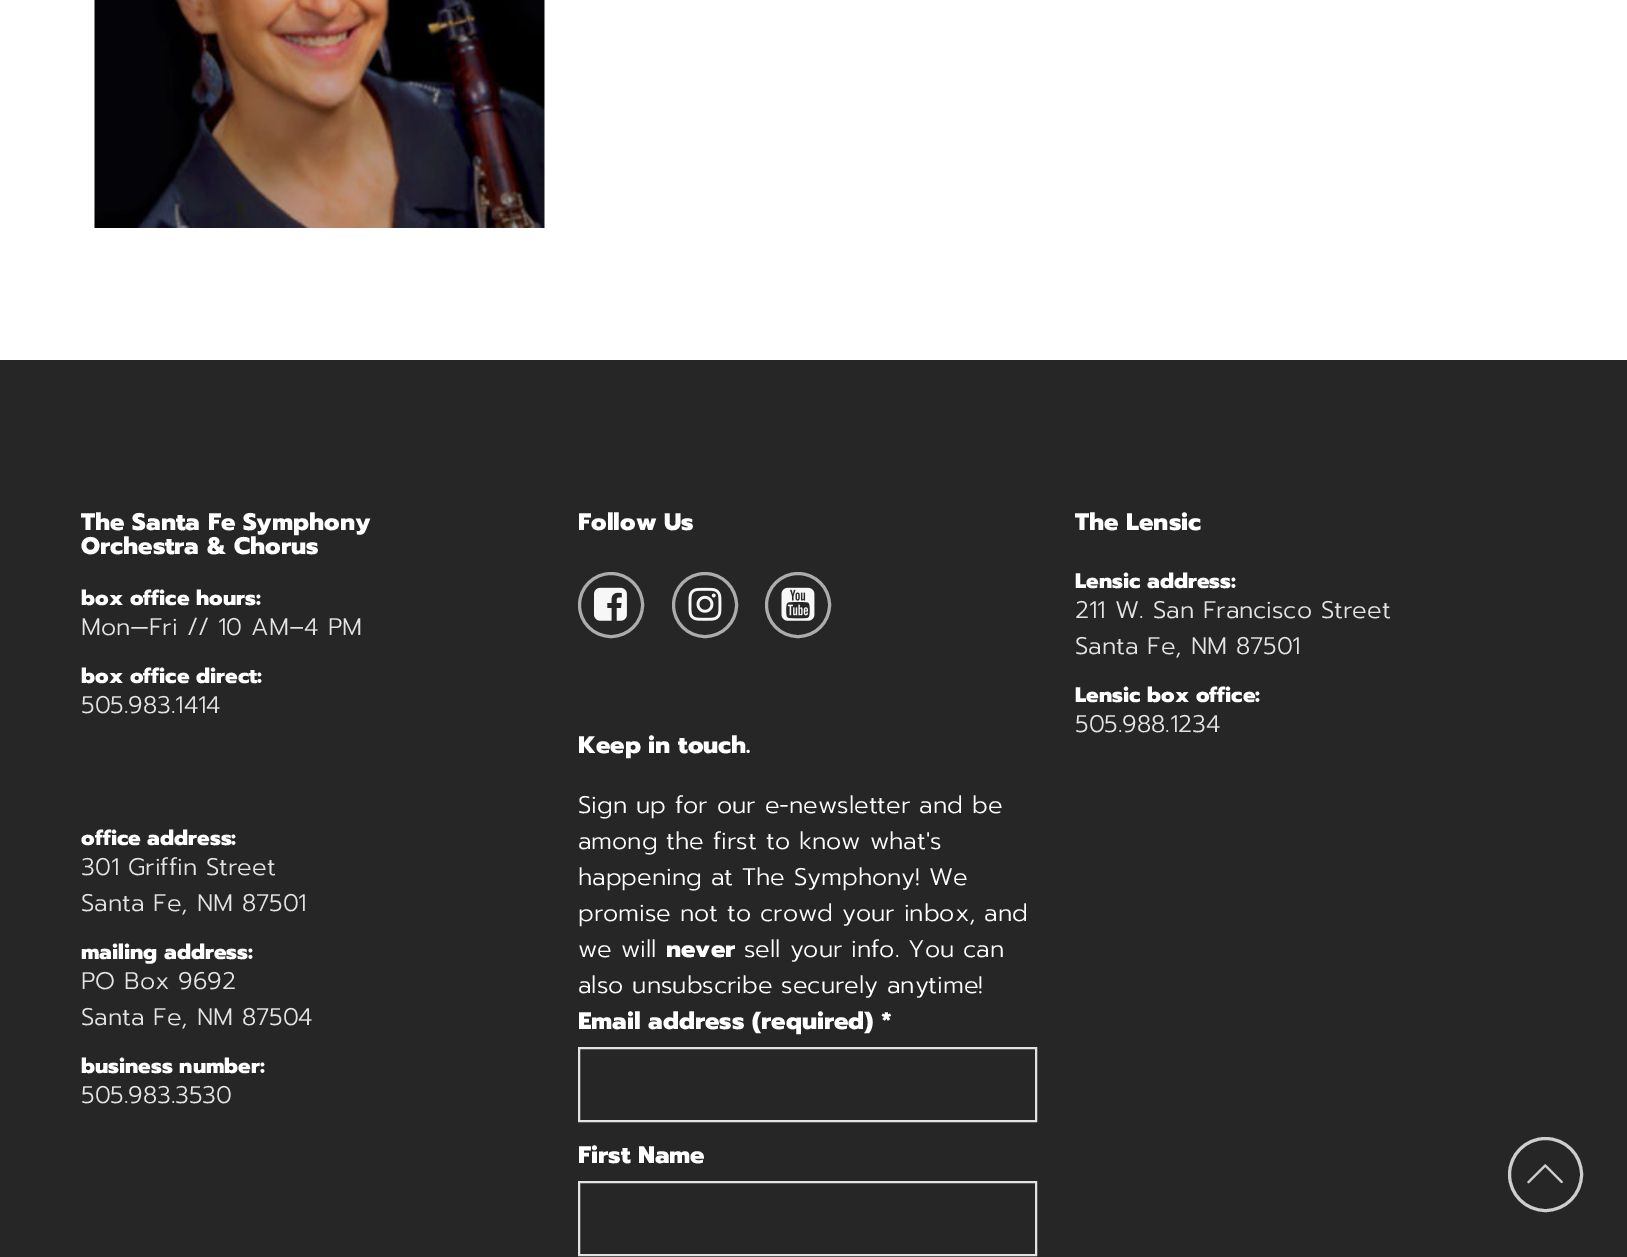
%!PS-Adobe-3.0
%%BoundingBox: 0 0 1627 1257
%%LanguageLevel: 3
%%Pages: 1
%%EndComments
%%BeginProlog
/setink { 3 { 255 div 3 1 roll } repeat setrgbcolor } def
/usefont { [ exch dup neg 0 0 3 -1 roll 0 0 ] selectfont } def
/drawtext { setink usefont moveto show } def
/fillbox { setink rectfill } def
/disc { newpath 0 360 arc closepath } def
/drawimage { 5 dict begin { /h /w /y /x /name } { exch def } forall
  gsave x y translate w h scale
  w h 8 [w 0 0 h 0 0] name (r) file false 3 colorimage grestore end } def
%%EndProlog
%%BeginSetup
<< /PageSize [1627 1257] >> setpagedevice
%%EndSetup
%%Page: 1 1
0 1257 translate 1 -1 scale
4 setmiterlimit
0 0 1627 1257 255 255 255 fillbox
(assets/img1.rgb) 94 0 451 228 drawimage
0 360 1627 897 38 38 38 fillbox
(The Santa Fe Symphony) 81 530 /Prompt-ExtraBold 24 255 255 255 drawtext
(Orchestra & Chorus) 81 554 /Prompt-ExtraBold 24 255 255 255 drawtext
(box office hours:) 81 605 /Prompt-ExtraBold 21 255 255 255 drawtext
(Mon—Fri // 10 AM–4 PM) 81 635 /Prompt-Light 24 227 227 227 drawtext
(box office direct:) 81 683 /Prompt-ExtraBold 21 255 255 255 drawtext
(505.983.1414) 81 713 /Prompt-Light 24 227 227 227 drawtext
(office address:) 81 845 /Prompt-ExtraBold 21 255 255 255 drawtext
(301 Griffin Street) 81 875 /Prompt-Light 24 227 227 227 drawtext
(Santa Fe, NM 87501) 81 911 /Prompt-Light 24 227 227 227 drawtext
(mailing address:) 81 959 /Prompt-ExtraBold 21 255 255 255 drawtext
(PO Box 9692) 81 989 /Prompt-Light 24 227 227 227 drawtext
(Santa Fe, NM 87504) 81 1025 /Prompt-Light 24 227 227 227 drawtext
(business number:) 81 1073 /Prompt-ExtraBold 21 255 255 255 drawtext
(505.983.3530) 81 1103 /Prompt-Light 24 227 227 227 drawtext
(Follow Us) 578 530 /Prompt-ExtraBold 24 255 255 255 drawtext
172 172 172 setink
3 setlinewidth
611 605 31.5 disc stroke
(assets/img2.rgb) 594 587 33 34 drawimage
705 605 31.5 disc stroke
(assets/img3.rgb) 688 587 34 34 drawimage
798 605 31.5 disc stroke
(assets/img4.rgb) 781 587 34 34 drawimage
(Keep in touch.) 578 753 /Prompt-ExtraBold 24 255 255 255 drawtext
(Sign up for our e-newsletter and be) 578 813 /Prompt-Light 24 255 255 255 drawtext
(among the first to know what's) 578 849 /Prompt-Light 24 255 255 255 drawtext
(happening at The Symphony! We) 578 885 /Prompt-Light 24 255 255 255 drawtext
(promise not to crowd your inbox, and) 578 921 /Prompt-Light 24 255 255 255 drawtext
(we will) 578 957 /Prompt-Light 24 255 255 255 drawtext
(never) 666 957 /Prompt-ExtraBold 24 255 255 255 drawtext
(sell your info. You can) 744 957 /Prompt-Light 24 255 255 255 drawtext
(also unsubscribe securely anytime!) 578 993 /Prompt-Light 24 255 255 255 drawtext
(Email address \(required\) *) 578 1029 /Prompt-ExtraBold 24 255 255 255 drawtext
227 227 227 setink
2 setlinewidth
579 1048 457 73 rectstroke
(First Name) 578 1163 /Prompt-ExtraBold 24 255 255 255 drawtext
227 227 227 setink
579 1182 457 73 rectstroke
(The Lensic) 1075 530 /Prompt-ExtraBold 24 255 255 255 drawtext
(Lensic address:) 1075 588 /Prompt-ExtraBold 21 255 255 255 drawtext
(211 W. San Francisco Street) 1075 618 /Prompt-Light 24 227 227 227 drawtext
(Santa Fe, NM 87501) 1075 654 /Prompt-Light 24 227 227 227 drawtext
(Lensic box office:) 1075 702 /Prompt-ExtraBold 21 255 255 255 drawtext
(505.988.1234) 1075 732 /Prompt-Light 24 227 227 227 drawtext
206 206 206 setink
3 setlinewidth
1545.5 1174.5 36 disc stroke
(assets/img5.rgb) 1527 1164 36 20 drawimage
showpage
%%EOF
